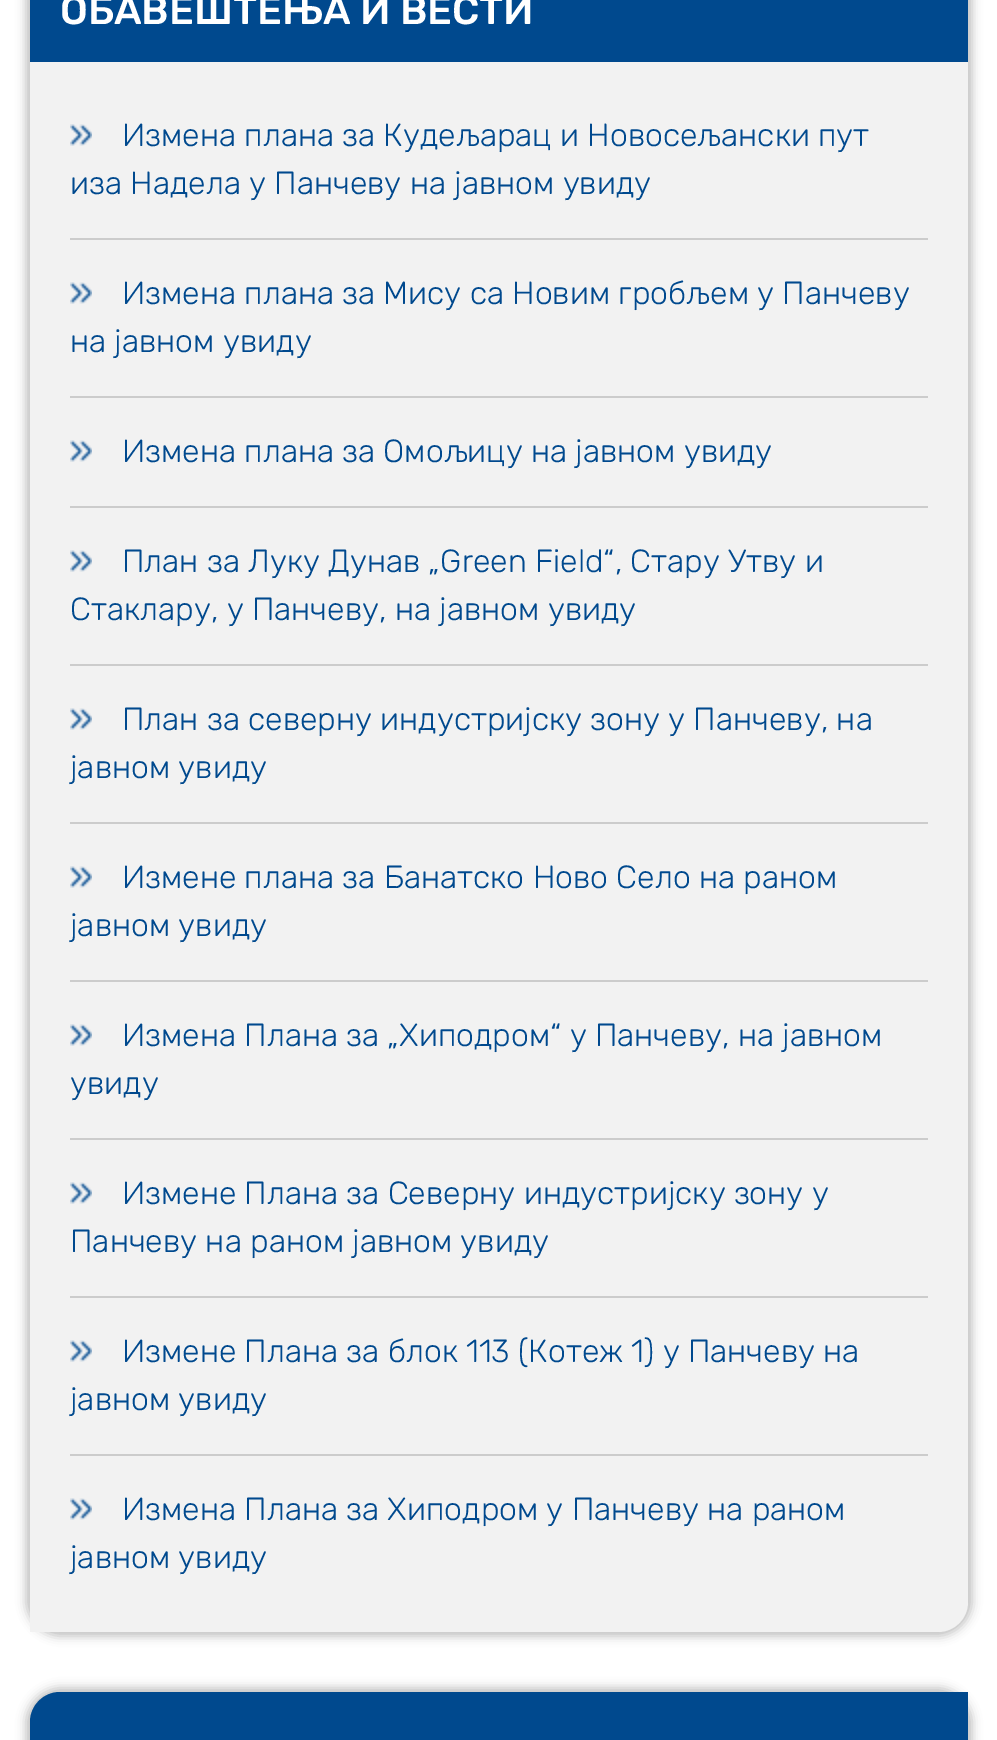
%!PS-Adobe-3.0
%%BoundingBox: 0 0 997 1740
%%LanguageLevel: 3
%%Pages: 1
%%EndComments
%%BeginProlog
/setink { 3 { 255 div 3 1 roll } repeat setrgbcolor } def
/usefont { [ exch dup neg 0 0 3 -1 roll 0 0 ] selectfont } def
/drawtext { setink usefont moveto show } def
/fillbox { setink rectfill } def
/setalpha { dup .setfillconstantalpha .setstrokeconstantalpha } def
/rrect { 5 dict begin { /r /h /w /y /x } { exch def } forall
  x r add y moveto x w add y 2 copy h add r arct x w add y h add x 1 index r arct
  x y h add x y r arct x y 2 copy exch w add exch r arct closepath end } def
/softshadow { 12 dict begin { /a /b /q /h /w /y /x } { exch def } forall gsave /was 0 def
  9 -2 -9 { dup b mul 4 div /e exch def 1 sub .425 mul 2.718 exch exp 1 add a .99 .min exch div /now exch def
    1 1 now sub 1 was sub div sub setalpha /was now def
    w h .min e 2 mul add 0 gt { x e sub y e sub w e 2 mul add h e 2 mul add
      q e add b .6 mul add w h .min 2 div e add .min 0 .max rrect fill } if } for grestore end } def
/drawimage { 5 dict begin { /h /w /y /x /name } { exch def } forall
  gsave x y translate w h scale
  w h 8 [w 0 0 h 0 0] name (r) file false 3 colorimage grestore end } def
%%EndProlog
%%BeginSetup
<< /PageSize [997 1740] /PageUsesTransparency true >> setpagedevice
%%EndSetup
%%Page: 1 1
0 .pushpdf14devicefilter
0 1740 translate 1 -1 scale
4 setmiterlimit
0 0 997 1740 255 255 255 fillbox
0 0 0 setink
26 -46 946 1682 34 5 0.25 softshadow
242 242 242 setink
60 -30 moveto 968 -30 lineto 968 1602 lineto 968 1618.5 954.5 1632 938 1632 curveto 30 1632 lineto 30 0 lineto 30 -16.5 43.5 -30 60 -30 curveto closepath fill
30 0 938 62 0 73 142 fillbox
(ОБАВЕШТЕЊА И ВЕСТИ) 60 24 /Rubik-Medium 40 255 255 255 drawtext
70 238 858 2 204 204 204 fillbox
(assets/img1.rgb) 70 124 22 22 drawimage
(Измена плана за Кудељарац и Новосељански пут) 122 146 /Rubik-Light 32 0 73 142 drawtext
(иза Надела у Панчеву на јавном увиду) 70 194 /Rubik-Light 32 0 73 142 drawtext
70 396 858 2 204 204 204 fillbox
(assets/img1.rgb) 70 282 22 22 drawimage
(Измена плана за Мису са Новим гробљем у Панчеву) 122 304 /Rubik-Light 32 0 73 142 drawtext
(на јавном увиду) 70 352 /Rubik-Light 32 0 73 142 drawtext
70 506 858 2 204 204 204 fillbox
(assets/img1.rgb) 70 440 22 22 drawimage
(Измена плана за Омољицу на јавном увиду) 122 462 /Rubik-Light 32 0 73 142 drawtext
70 664 858 2 204 204 204 fillbox
(assets/img1.rgb) 70 550 22 22 drawimage
(План за Луку Дунав „Green Field“, Стару Утву и) 122 572 /Rubik-Light 32 0 73 142 drawtext
(Стаклару, у Панчеву, на јавном увиду) 70 620 /Rubik-Light 32 0 73 142 drawtext
70 822 858 2 204 204 204 fillbox
(assets/img1.rgb) 70 708 22 22 drawimage
(План за северну индустријску зону у Панчеву, на) 122 730 /Rubik-Light 32 0 73 142 drawtext
(јавном увиду) 70 778 /Rubik-Light 32 0 73 142 drawtext
70 980 858 2 204 204 204 fillbox
(assets/img1.rgb) 70 866 22 22 drawimage
(Измене плана за Банатско Ново Село на раном) 122 888 /Rubik-Light 32 0 73 142 drawtext
(јавном увиду) 70 936 /Rubik-Light 32 0 73 142 drawtext
70 1138 858 2 204 204 204 fillbox
(assets/img1.rgb) 70 1024 22 22 drawimage
(Измена Плана за „Хиподром“ у Панчеву, на јавном) 122 1046 /Rubik-Light 32 0 73 142 drawtext
(увиду) 70 1094 /Rubik-Light 32 0 73 142 drawtext
70 1296 858 2 204 204 204 fillbox
(assets/img1.rgb) 70 1182 22 22 drawimage
(Измене Плана за Северну индустријску зону у) 122 1204 /Rubik-Light 32 0 73 142 drawtext
(Панчеву на раном јавном увиду) 70 1252 /Rubik-Light 32 0 73 142 drawtext
70 1454 858 2 204 204 204 fillbox
(assets/img1.rgb) 70 1340 22 22 drawimage
(Измене Плана за блок 113 \(Котеж 1\) у Панчеву на) 122 1362 /Rubik-Light 32 0 73 142 drawtext
(јавном увиду) 70 1410 /Rubik-Light 32 0 73 142 drawtext
(assets/img1.rgb) 70 1498 22 22 drawimage
(Измена Плана за Хиподром у Панчеву на раном) 122 1520 /Rubik-Light 32 0 73 142 drawtext
(јавном увиду) 70 1568 /Rubik-Light 32 0 73 142 drawtext
0 0 0 setink
26 1688 946 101 34 5 0.25 softshadow
0 73 142 setink
60 1692 moveto 968 1692 lineto 968 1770 lineto 30 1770 lineto 30 1722 lineto 30 1705.5 43.5 1692 60 1692 curveto closepath fill
.poppdf14devicefilter showpage
%%EOF
